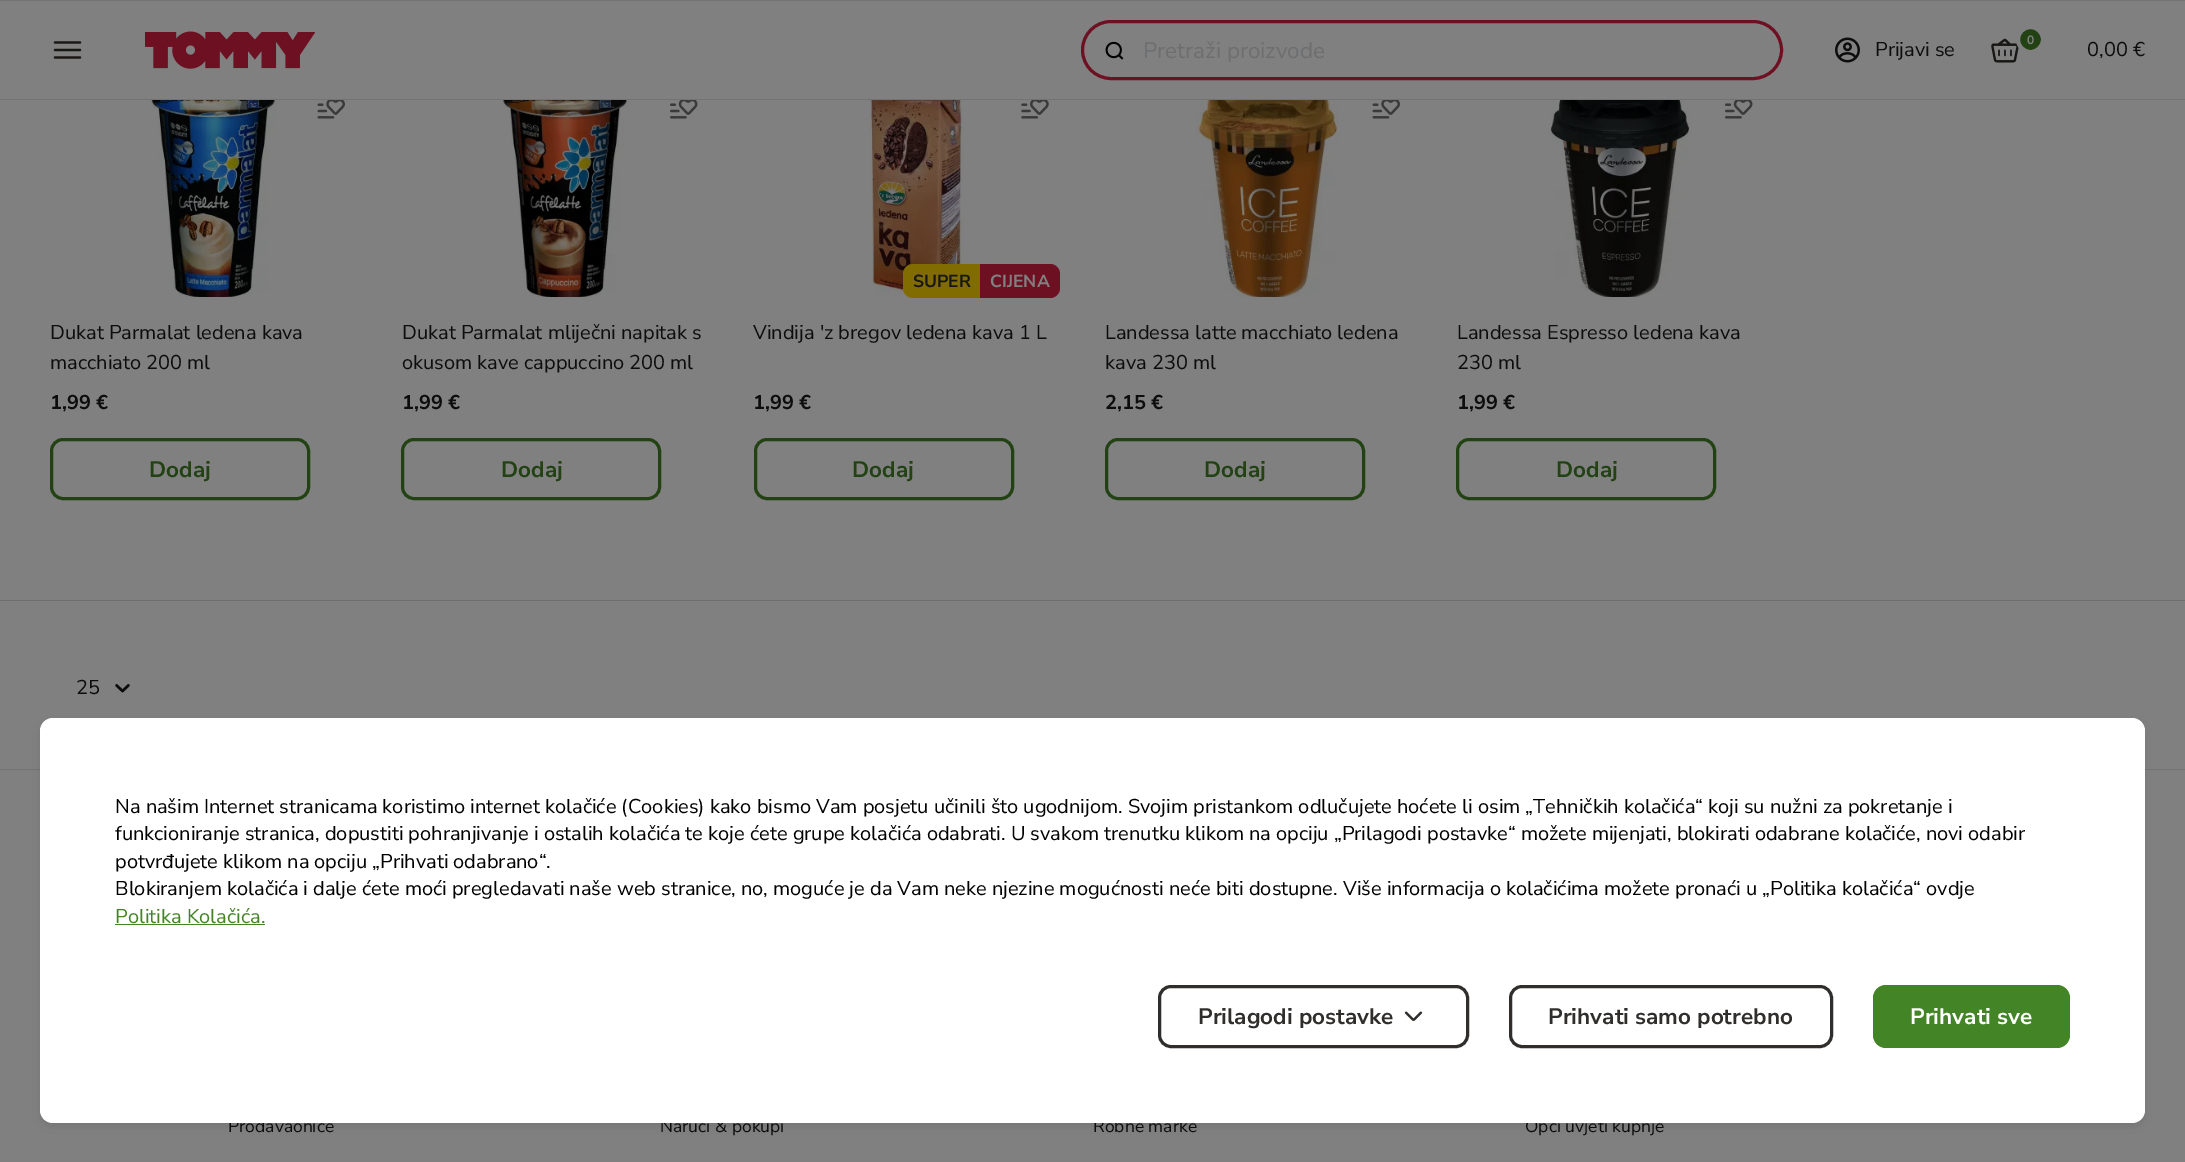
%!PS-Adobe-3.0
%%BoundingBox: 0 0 2185 1162
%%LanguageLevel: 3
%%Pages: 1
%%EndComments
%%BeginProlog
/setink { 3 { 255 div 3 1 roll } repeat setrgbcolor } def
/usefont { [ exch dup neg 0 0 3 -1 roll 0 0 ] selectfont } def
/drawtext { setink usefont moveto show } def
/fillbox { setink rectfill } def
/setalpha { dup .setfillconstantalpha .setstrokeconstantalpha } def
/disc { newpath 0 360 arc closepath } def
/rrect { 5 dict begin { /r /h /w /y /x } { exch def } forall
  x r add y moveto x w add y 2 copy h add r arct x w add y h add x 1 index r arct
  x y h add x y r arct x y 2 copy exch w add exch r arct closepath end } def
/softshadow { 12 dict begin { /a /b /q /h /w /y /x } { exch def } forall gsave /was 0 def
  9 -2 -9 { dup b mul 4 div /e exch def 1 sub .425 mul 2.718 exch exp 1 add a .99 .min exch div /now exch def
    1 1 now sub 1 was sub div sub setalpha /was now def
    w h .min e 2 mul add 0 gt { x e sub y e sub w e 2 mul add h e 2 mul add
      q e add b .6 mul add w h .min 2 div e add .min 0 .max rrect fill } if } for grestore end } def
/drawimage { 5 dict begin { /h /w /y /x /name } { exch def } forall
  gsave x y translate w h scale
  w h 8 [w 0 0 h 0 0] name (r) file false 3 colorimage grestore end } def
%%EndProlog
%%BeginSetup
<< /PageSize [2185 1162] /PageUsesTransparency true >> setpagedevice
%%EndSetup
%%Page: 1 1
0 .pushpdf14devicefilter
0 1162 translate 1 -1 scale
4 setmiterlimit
0 0 2185 1162 128 128 128 fillbox
0 0 2185 1 115 115 115 fillbox
0 99 2185 1 115 115 115 fillbox
(assets/img1.rgb) 53 41 29 18 drawimage
(assets/img2.rgb) 145 31 170 38 drawimage
109 16 34 setink
3 setlinewidth
1082.5 21.5 699 57 28.5 rrect stroke
(assets/img3.rgb) 1105 41 19 19 drawimage
(Pretraži proizvode) 1143 58 /NunitoSans-Regular 22.5 109 110 112 drawtext
(assets/img4.rgb) 1835 37 25 26 drawimage
(Prijavi se) 1875 56 /NunitoSans-Regular 20 13 13 13 drawtext
(assets/img5.rgb) 1991 38 28 25 drawimage
34 66 20 setink
2030.5 39.5 12.5 disc gsave fill grestore
128 128 128 setink
4 setlinewidth
stroke
(0) 2027 44 /NunitoSans-Bold 12 128 128 128 drawtext
(0,00 €) 2087 56 /NunitoSans-Regular 20 13 13 13 drawtext
(assets/img6.rgb) 151 100 125 197 drawimage
(assets/img7.rgb) 317 100 28 19 drawimage
(Dukat Parmalat ledena kava) 50 339 /NunitoSans-Regular 20 13 13 13 drawtext
(macchiato 200 ml) 50 369 /NunitoSans-Regular 20 13 13 13 drawtext
(1,99 €) 50 409 /NunitoSans-Bold 20 13 13 13 drawtext
34 66 20 setink
3 setlinewidth
51.5 439.5 257 59 11.5 rrect stroke
(Dodaj) 149 477 /NunitoSans-Bold 22.5 34 66 20 drawtext
(assets/img8.rgb) 503 100 125 197 drawimage
(assets/img9.rgb) 670 100 28 19 drawimage
(Dukat Parmalat mliječni napitak s) 402 339 /NunitoSans-Regular 20 13 13 13 drawtext
(okusom kave cappuccino 200 ml) 402 369 /NunitoSans-Regular 20 13 13 13 drawtext
(1,99 €) 402 409 /NunitoSans-Bold 20 13 13 13 drawtext
34 66 20 setink
402.5 439.5 257 59 11.5 rrect stroke
(Dodaj) 501 477 /NunitoSans-Bold 22.5 34 66 20 drawtext
(assets/img10.rgb) 869 100 95 197 drawimage
(assets/img11.rgb) 1021 100 28 19 drawimage
128 108 0 setink
913 264 moveto 980 264 lineto 980 298 lineto 913 298 lineto 907.5 298 903 293.5 903 288 curveto 903 274 lineto 903 268.5 907.5 264 913 264 curveto closepath fill
(SUPER) 913 287 /NunitoSans-Bold 17.5 24 23 22 drawtext
109 16 34 setink
980 264 moveto 1050 264 lineto 1055.5 264 1060 268.5 1060 274 curveto 1060 288 lineto 1060 293.5 1055.5 298 1050 298 curveto 980 298 lineto closepath fill
(CIJENA) 990 287 /NunitoSans-Bold 17.5 128 128 128 drawtext
(Vindija 'z bregov ledena kava 1 L) 753 339 /NunitoSans-Regular 20 13 13 13 drawtext
(1,99 €) 753 409 /NunitoSans-Bold 20 13 13 13 drawtext
34 66 20 setink
755.5 439.5 257 59 11.5 rrect stroke
(Dodaj) 852 477 /NunitoSans-Bold 22.5 34 66 20 drawtext
(assets/img12.rgb) 1196 100 143 197 drawimage
(assets/img7.rgb) 1372 100 28 19 drawimage
(Landessa latte macchiato ledena) 1105 339 /NunitoSans-Regular 20 13 13 13 drawtext
(kava 230 ml) 1105 369 /NunitoSans-Regular 20 13 13 13 drawtext
(2,15 €) 1105 409 /NunitoSans-Bold 20 13 13 13 drawtext
34 66 20 setink
1106.5 439.5 257 59 11.5 rrect stroke
(Dodaj) 1204 477 /NunitoSans-Bold 22.5 34 66 20 drawtext
(assets/img13.rgb) 1548 100 142 197 drawimage
(assets/img9.rgb) 1725 100 28 19 drawimage
(Landessa Espresso ledena kava) 1457 339 /NunitoSans-Regular 20 13 13 13 drawtext
(230 ml) 1457 369 /NunitoSans-Regular 20 13 13 13 drawtext
(1,99 €) 1457 409 /NunitoSans-Bold 20 13 13 13 drawtext
34 66 20 setink
1457.5 439.5 257 59 11.5 rrect stroke
(Dodaj) 1556 477 /NunitoSans-Bold 22.5 34 66 20 drawtext
0 600 2185 1 109 110 112 fillbox
(25) 76 694 /NunitoSans-Regular 20 13 13 13 drawtext
(assets/img14.rgb) 115 684 15 9 drawimage
0 769 2185 1 115 115 115 fillbox
(Prodavaonice) 228 1132 /NunitoSans-Regular 17.5 13 13 13 drawtext
(Naruči & pokupi) 660 1132 /NunitoSans-Regular 17.5 13 13 13 drawtext
(Robne marke) 1093 1132 /NunitoSans-Regular 17.5 13 13 13 drawtext
(Opći uvjeti kupnje) 1525 1132 /NunitoSans-Regular 17.5 13 13 13 drawtext
0 0 0 setink
41 724 2103 402 11 4 0.1 softshadow
255 255 255 setink
40 718 2105 405 13 rrect fill
(Na našim Internet stranicama koristimo internet kolačiće \(Cookies\) kako bismo Vam posjetu učinili što ugodnijom. Svojim pristankom odlučujete hoćete li osim „Tehničkih kolačića“ koji su nužni za pokretanje i) 115 813 /NunitoSans-Regular 20 0 0 0 drawtext
(funkcioniranje stranica, dopustiti pohranjivanje i ostalih kolačića te koje ćete grupe kolačića odabrati. U svakom trenutku klikom na opciju „Prilagodi postavke“ možete mijenjati, blokirati odabrane kolačiće, novi odabir) 115 840 /NunitoSans-Regular 20 0 0 0 drawtext
(potvrđujete klikom na opciju „Prihvati odabrano“.) 115 868 /NunitoSans-Regular 20 0 0 0 drawtext
(Blokiranjem kolačića i dalje ćete moći pregledavati naše web stranice, no, moguće je da Vam neke njezine mogućnosti neće biti dostupne. Više informacija o kolačićima možete pronaći u „Politika kolačića“ ovdje) 115 895 /NunitoSans-Regular 20 0 0 0 drawtext
(Politika Kolačića.) 115 923 /NunitoSans-Regular 20 67 132 39 drawtext
115 924 150 1 67 132 39 fillbox
48 46 44 setink
1159.5 986.5 308 60 11.5 rrect stroke
(Prilagodi postavke) 1198 1024 /NunitoSans-Bold 22.5 48 46 44 drawtext
(assets/img15.rgb) 1404 1011 19 10 drawimage
1510.5 986.5 321 60 11.5 rrect stroke
(Prihvati samo potrebno) 1548 1024 /NunitoSans-Bold 22.5 48 46 44 drawtext
67 132 39 setink
1873 985 197 63 13 rrect fill
(Prihvati sve) 1910 1024 /NunitoSans-Bold 22.5 255 255 255 drawtext
.poppdf14devicefilter showpage
%%EOF
